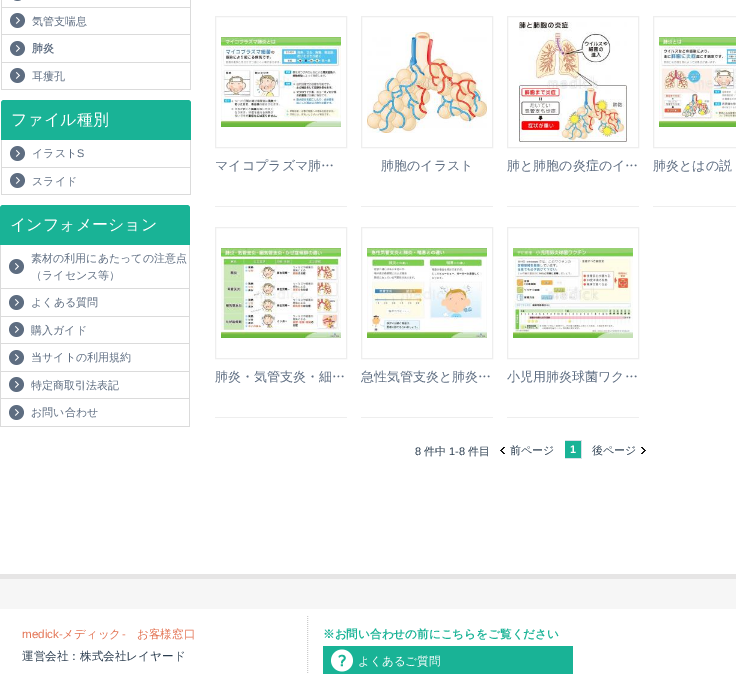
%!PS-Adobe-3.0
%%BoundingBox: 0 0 736 674
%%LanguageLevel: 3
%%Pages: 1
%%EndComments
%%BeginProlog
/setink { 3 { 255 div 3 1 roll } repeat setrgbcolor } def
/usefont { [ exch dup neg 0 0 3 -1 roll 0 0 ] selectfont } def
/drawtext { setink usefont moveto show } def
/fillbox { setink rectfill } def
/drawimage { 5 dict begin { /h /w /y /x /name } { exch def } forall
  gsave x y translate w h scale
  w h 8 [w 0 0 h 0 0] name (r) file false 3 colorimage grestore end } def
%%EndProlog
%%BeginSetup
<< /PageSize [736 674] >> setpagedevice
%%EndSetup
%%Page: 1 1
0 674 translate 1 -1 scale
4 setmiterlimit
0 0 736 674 255 255 255 fillbox
190 0 1 90 219 219 219 fillbox
1 7 190 1 219 219 219 fillbox
1 0 1 8 219 219 219 fillbox
(assets/img1.rgb) 14 0 7 1 drawimage
1 34 190 1 219 219 219 fillbox
1 8 1 27 219 219 219 fillbox
(assets/img2.rgb) 10 13 15 15 drawimage
(気管支喘息) 32 25 /WenQuanYiZenHei-Medium 11 94 109 129 drawtext
1 62 190 1 219 219 219 fillbox
1 35 1 28 219 219 219 fillbox
(assets/img2.rgb) 10 41 15 15 drawimage
(肺炎) 32 52 /WenQuanYiZenHei-Bold 11 94 109 129 drawtext
1 89 190 1 219 219 219 fillbox
1 63 1 27 219 219 219 fillbox
(assets/img2.rgb) 10 68 15 15 drawimage
(耳瘻孔) 32 80 /WenQuanYiZenHei-Medium 11 94 109 129 drawtext
25 179 150 setink
4 100 moveto 188 100 lineto 189.5 100 191 101.5 191 103 curveto 191 140 lineto 1 140 lineto 1 103 lineto 1 101.5 2.5 100 4 100 curveto closepath fill
(ファイル種別) 11 125 /WenQuanYiZenHei-Medium 16 255 255 255 drawtext
190 140 1 55 219 219 219 fillbox
1 167 190 1 219 219 219 fillbox
1 140 1 28 219 219 219 fillbox
(assets/img2.rgb) 10 146 15 15 drawimage
(イラスト) 32 157 /WenQuanYiZenHei-Medium 11 94 109 129 drawtext
(S) 77 157 /LiberationSans-Regular 11 94 109 129 drawtext
1 194 190 1 219 219 219 fillbox
1 168 1 27 219 219 219 fillbox
(assets/img2.rgb) 10 173 15 15 drawimage
(スライド) 32 185 /WenQuanYiZenHei-Medium 11 94 109 129 drawtext
25 179 150 setink
3 205 moveto 187 205 lineto 188.5 205 190 206.5 190 208 curveto 190 245 lineto 0 245 lineto 0 208 lineto 0 206.5 1.5 205 3 205 curveto closepath fill
(インフォメーション) 10 230 /WenQuanYiZenHei-Medium 16 255 255 255 drawtext
189 245 1 182 219 219 219 fillbox
0 288 190 1 219 219 219 fillbox
0 245 1 44 219 219 219 fillbox
(assets/img2.rgb) 9 259 15 15 drawimage
(素材の利用にあたっての注意点) 31 262 /WenQuanYiZenHei-Medium 11 94 109 129 drawtext
(（ライセンス等）) 31 279 /WenQuanYiZenHei-Medium 11 94 109 129 drawtext
0 316 190 1 219 219 219 fillbox
0 289 1 28 219 219 219 fillbox
(assets/img2.rgb) 9 295 15 15 drawimage
(よくある質問) 31 306 /WenQuanYiZenHei-Medium 11 94 109 129 drawtext
0 343 190 1 219 219 219 fillbox
0 317 1 27 219 219 219 fillbox
(assets/img2.rgb) 9 322 15 15 drawimage
(購入ガイド) 31 334 /WenQuanYiZenHei-Medium 11 94 109 129 drawtext
0 371 190 1 219 219 219 fillbox
0 344 1 28 219 219 219 fillbox
(assets/img2.rgb) 9 350 15 15 drawimage
(当サイトの利用規約) 31 361 /WenQuanYiZenHei-Medium 11 94 109 129 drawtext
0 398 190 1 219 219 219 fillbox
0 372 1 27 219 219 219 fillbox
(assets/img2.rgb) 9 377 15 15 drawimage
(特定商取引法表記) 31 389 /WenQuanYiZenHei-Medium 11 94 109 129 drawtext
0 426 190 1 219 219 219 fillbox
0 399 1 28 219 219 219 fillbox
(assets/img2.rgb) 9 405 15 15 drawimage
(お問い合わせ) 31 416 /WenQuanYiZenHei-Medium 11 94 109 129 drawtext
215 206 132 1 238 238 238 fillbox
215.5 16.5 131 131 rectstroke
(assets/img3.rgb) 221 37 120 90 drawimage
(マイコプラズマ肺…) 215 170 /WenQuanYiZenHei-Medium 13 94 109 129 drawtext
361 206 132 1 238 238 238 fillbox
361.5 16.5 131 131 rectstroke
(assets/img4.rgb) 367 32 120 101 drawimage
(肺胞のイラスト) 381 170 /WenQuanYiZenHei-Medium 13 94 109 129 drawtext
507 206 132 1 238 238 238 fillbox
507.5 16.5 131 131 rectstroke
(assets/img5.rgb) 519 22 108 120 drawimage
(肺と肺胞の炎症のイ…) 507 170 /WenQuanYiZenHei-Medium 13 94 109 129 drawtext
653 206 83 1 238 238 238 fillbox
653.5 16.5 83 131 rectstroke
(assets/img6.rgb) 659 37 77 90 drawimage
(肺炎とはの説) 653 170 /WenQuanYiZenHei-Medium 13 94 109 129 drawtext
215 417 132 1 238 238 238 fillbox
215.5 227.5 131 131 rectstroke
(assets/img7.rgb) 221 248 120 90 drawimage
(肺炎・気管支炎・細…) 215 381 /WenQuanYiZenHei-Medium 13 94 109 129 drawtext
361 417 132 1 238 238 238 fillbox
361.5 227.5 131 131 rectstroke
(assets/img8.rgb) 367 248 120 90 drawimage
(急性気管支炎と肺炎…) 361 381 /WenQuanYiZenHei-Medium 13 94 109 129 drawtext
507 417 132 1 238 238 238 fillbox
507.5 227.5 131 131 rectstroke
(assets/img9.rgb) 513 248 120 90 drawimage
(小児用肺炎球菌ワク…) 507 381 /WenQuanYiZenHei-Medium 13 94 109 129 drawtext
(8) 415 455 /LiberationSans-Regular 11 43 61 79 drawtext
(件中) 424 455 /WenQuanYiZenHei-Medium 11 43 61 79 drawtext
(1-8) 449 455 /LiberationSans-Regular 11 43 61 79 drawtext
(件目) 468 455 /WenQuanYiZenHei-Medium 11 43 61 79 drawtext
(assets/img10.rgb) 500 447 5 7 drawimage
(前ページ) 510 454 /WenQuanYiZenHei-Medium 11 43 61 79 drawtext
565 441 16 17 25 179 150 fillbox
565 440 17 1 216 223 231 fillbox
581 440 1 19 216 223 231 fillbox
565 458 17 1 216 223 231 fillbox
(1) 570 453 /LiberationSans-Bold 11 255 255 255 drawtext
(assets/img11.rgb) 641 447 5 7 drawimage
(後ページ) 592 454 /WenQuanYiZenHei-Medium 11 43 61 79 drawtext
0 579 736 30 246 246 246 fillbox
0 574 736 5 230 229 229 fillbox
(medick-) 22 638 /LiberationSans-Regular 11.6 227 114 82 drawtext
(メディック) 62 638 /WenQuanYiZenHei-Medium 11.6 227 114 82 drawtext
(-) 122 638 /LiberationSans-Regular 11.6 227 114 82 drawtext
(お客様窓口) 137 638 /WenQuanYiZenHei-Medium 11.6 227 114 82 drawtext
(運営会社：株式会社レイヤード) 22 660 /WenQuanYiZenHei-Medium 11.6 43 61 79 drawtext
204 204 204 setink
[1 1] 0 setdash
307.5 616 moveto 307.5 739 lineto stroke
(※お問い合わせの前にこちらをご覧ください) 323 638 /WenQuanYiZenHei-Bold 11.6 25 179 150 drawtext
(assets/img12.rgb) 323 646 250 28 drawimage
(よくあるご質問) 358 665 /WenQuanYiZenHei-Medium 11.6 255 255 255 drawtext
showpage
%%EOF
